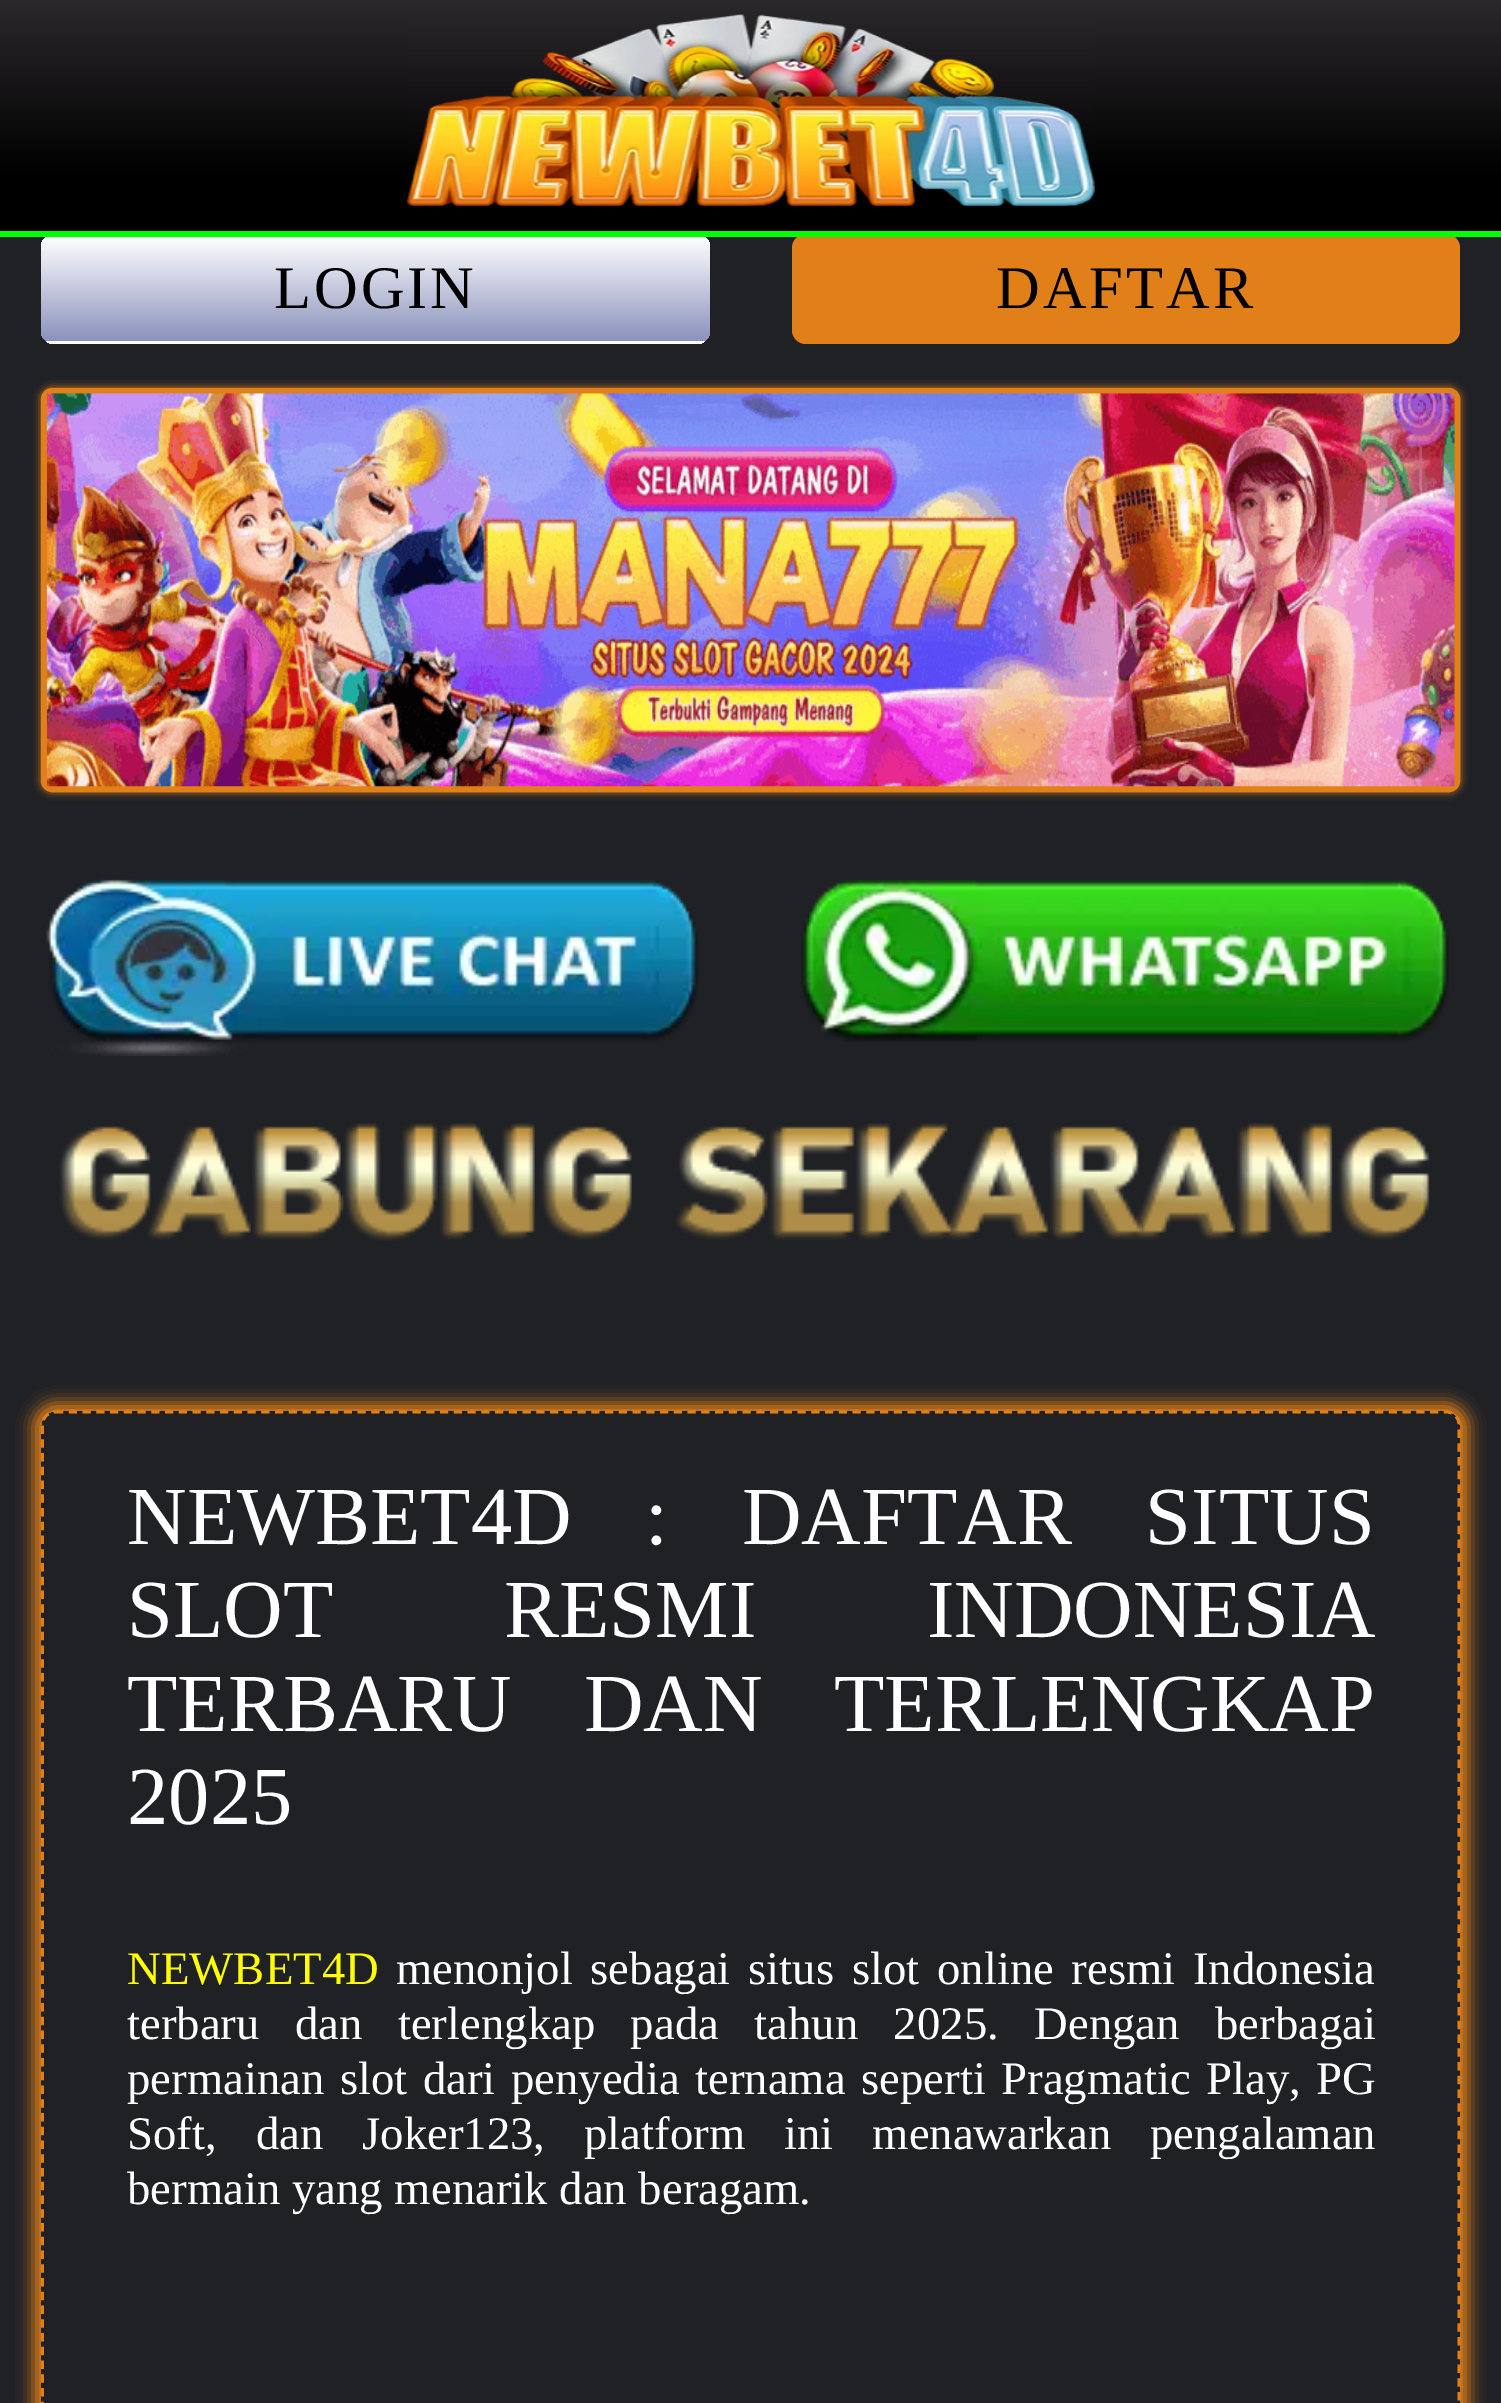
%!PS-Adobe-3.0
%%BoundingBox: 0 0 1501 2403
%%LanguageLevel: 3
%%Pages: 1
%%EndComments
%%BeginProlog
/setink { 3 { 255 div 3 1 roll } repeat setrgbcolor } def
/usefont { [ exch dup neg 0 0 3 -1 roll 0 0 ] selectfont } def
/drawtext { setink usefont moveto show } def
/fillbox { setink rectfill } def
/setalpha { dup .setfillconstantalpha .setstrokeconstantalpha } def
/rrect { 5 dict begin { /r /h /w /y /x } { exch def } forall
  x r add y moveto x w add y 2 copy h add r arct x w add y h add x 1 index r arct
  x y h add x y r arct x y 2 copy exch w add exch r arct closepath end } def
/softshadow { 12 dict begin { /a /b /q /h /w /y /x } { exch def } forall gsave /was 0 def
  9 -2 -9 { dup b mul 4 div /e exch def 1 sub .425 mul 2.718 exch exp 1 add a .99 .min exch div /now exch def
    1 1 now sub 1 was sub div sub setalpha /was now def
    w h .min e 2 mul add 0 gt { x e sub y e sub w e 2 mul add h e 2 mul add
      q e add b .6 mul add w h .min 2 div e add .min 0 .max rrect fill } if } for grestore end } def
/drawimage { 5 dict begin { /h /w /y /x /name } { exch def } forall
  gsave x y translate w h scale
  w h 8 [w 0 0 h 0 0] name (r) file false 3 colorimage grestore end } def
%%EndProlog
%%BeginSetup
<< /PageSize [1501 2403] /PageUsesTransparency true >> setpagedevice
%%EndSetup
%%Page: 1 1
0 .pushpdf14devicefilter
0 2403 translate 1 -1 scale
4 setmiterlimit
0 0 1501 2403 32 33 37 fillbox
gsave 0 0 moveto 1501 0 lineto 1501 231 lineto 0 231 lineto closepath clip newpath
<< /ShadingType 2 /ColorSpace /DeviceRGB /Coords [751 231 751 0] /Extend [true true] /Function << /FunctionType 3 /Domain [0 1] /Functions [<< /FunctionType 2 /Domain [0 1] /C0 [0.004 0 0.004] /C1 [0.004 0 0.004] /N 1 >> << /FunctionType 2 /Domain [0 1] /C0 [0.004 0 0.004] /C1 [0.169 0.157 0.169] /N 1 >>] /Bounds [0.24] /Encode [0 1 0 1] >> >> shfill grestore
225 128 25 setink
792 234 668 110 14 rrect fill
0 231 1501 6 0 255 0 fillbox
(assets/img1.rgb) 407 14 688 192 drawimage
gsave
41 234 669 110 14 rrect clip newpath
gsave 41 237 moveto 710 237 lineto 710 341 lineto 41 341 lineto closepath clip newpath
<< /ShadingType 2 /ColorSpace /DeviceRGB /Coords [375 236 375 341] /Extend [true true] /Function << /FunctionType 2 /Domain [0 1] /C0 [1 1 1] /C1 [0.545 0.573 0.737] /N 1 >> >> shfill grestore
gsave 41 341 moveto 710 341 lineto 710 344 lineto 41 344 lineto closepath clip newpath
<< /ShadingType 2 /ColorSpace /DeviceRGB /Coords [375 341 375 446] /Extend [true true] /Function << /FunctionType 2 /Domain [0 1] /C0 [1 1 1] /C1 [0.545 0.573 0.737] /N 1 >> >> shfill grestore
grestore
/LiberationSerif-Regular 60.5 usefont
0 0 0 setink
274 308 moveto 3 0 (LOGIN) ashow
996 308 moveto 3 0 (DAFTAR) ashow
225 128 25 setink
41 388 1419 404 11 4 1 softshadow
6 setlinewidth
44 391 1413 398 8 rrect stroke
(assets/img2.rgb) 46 393 1409 394 drawimage
(assets/img3.rgb) 46 879 653 177 drawimage
(assets/img4.rgb) 801 880 648 162 drawimage
(assets/img5.rgb) 59 1123 1371 118 drawimage
gsave
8 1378 moveto 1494 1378 lineto 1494 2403 lineto 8 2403 lineto closepath 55 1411 moveto 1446 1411 lineto 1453.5 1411 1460 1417.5 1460 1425 curveto 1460 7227 lineto 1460 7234.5 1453.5 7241 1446 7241 curveto 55 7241 lineto 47.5 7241 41 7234.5 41 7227 curveto 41 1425 lineto 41 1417.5 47.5 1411 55 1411 curveto closepath eoclip newpath
33 1403 1436 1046 22 8 1 softshadow
grestore
2.8 setlinewidth
[8.25 5.5] 0 setdash
55 1412 moveto 1446.5 1412 lineto 1453.5 1412 1459 1417.5 1459 1424.5 curveto 1459 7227 lineto 1459 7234 1453.5 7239.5 1446.5 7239.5 curveto 55 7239.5 lineto 48 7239.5 42.5 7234 42.5 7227 curveto 42.5 1424.5 lineto 42.5 1417.5 48 1412 55 1412 curveto closepath stroke
/LiberationSerif-Regular 82.5 usefont
255 255 255 setink
127 1544 moveto 53 0 32 (NEWBET4D : DAFTAR SITUS) widthshow
127 1637 moveto 150 0 32 (SLOT RESMI INDONESIA) widthshow
127 1731 moveto 51 0 32 (TERBARU DAN TERLENGKAP) widthshow
(2025) 127 1824 /LiberationSerif-Regular 82.5 255 255 255 drawtext
(NEWBET4D) 127 1984 /LiberationSerif-Regular 46.75 255 255 0 drawtext
255 255 255 setink
396 1984 moveto 6 0 32 (menonjol sebagai situs slot online resmi Indonesia) widthshow
127 2039 moveto 23.75 0 32 (terbaru dan terlengkap pada tahun 2025. Dengan berbagai) widthshow
127 2094 moveto 3.75 0 32 (permainan slot dari penyedia ternama seperti Pragmatic Play, PG) widthshow
127 2149 moveto 27.25 0 32 (Soft, dan Joker123, platform ini menawarkan pengalaman) widthshow
(bermain yang menarik dan beragam.) 127 2204 /LiberationSerif-Regular 46.75 255 255 255 drawtext
.poppdf14devicefilter showpage
%%EOF
